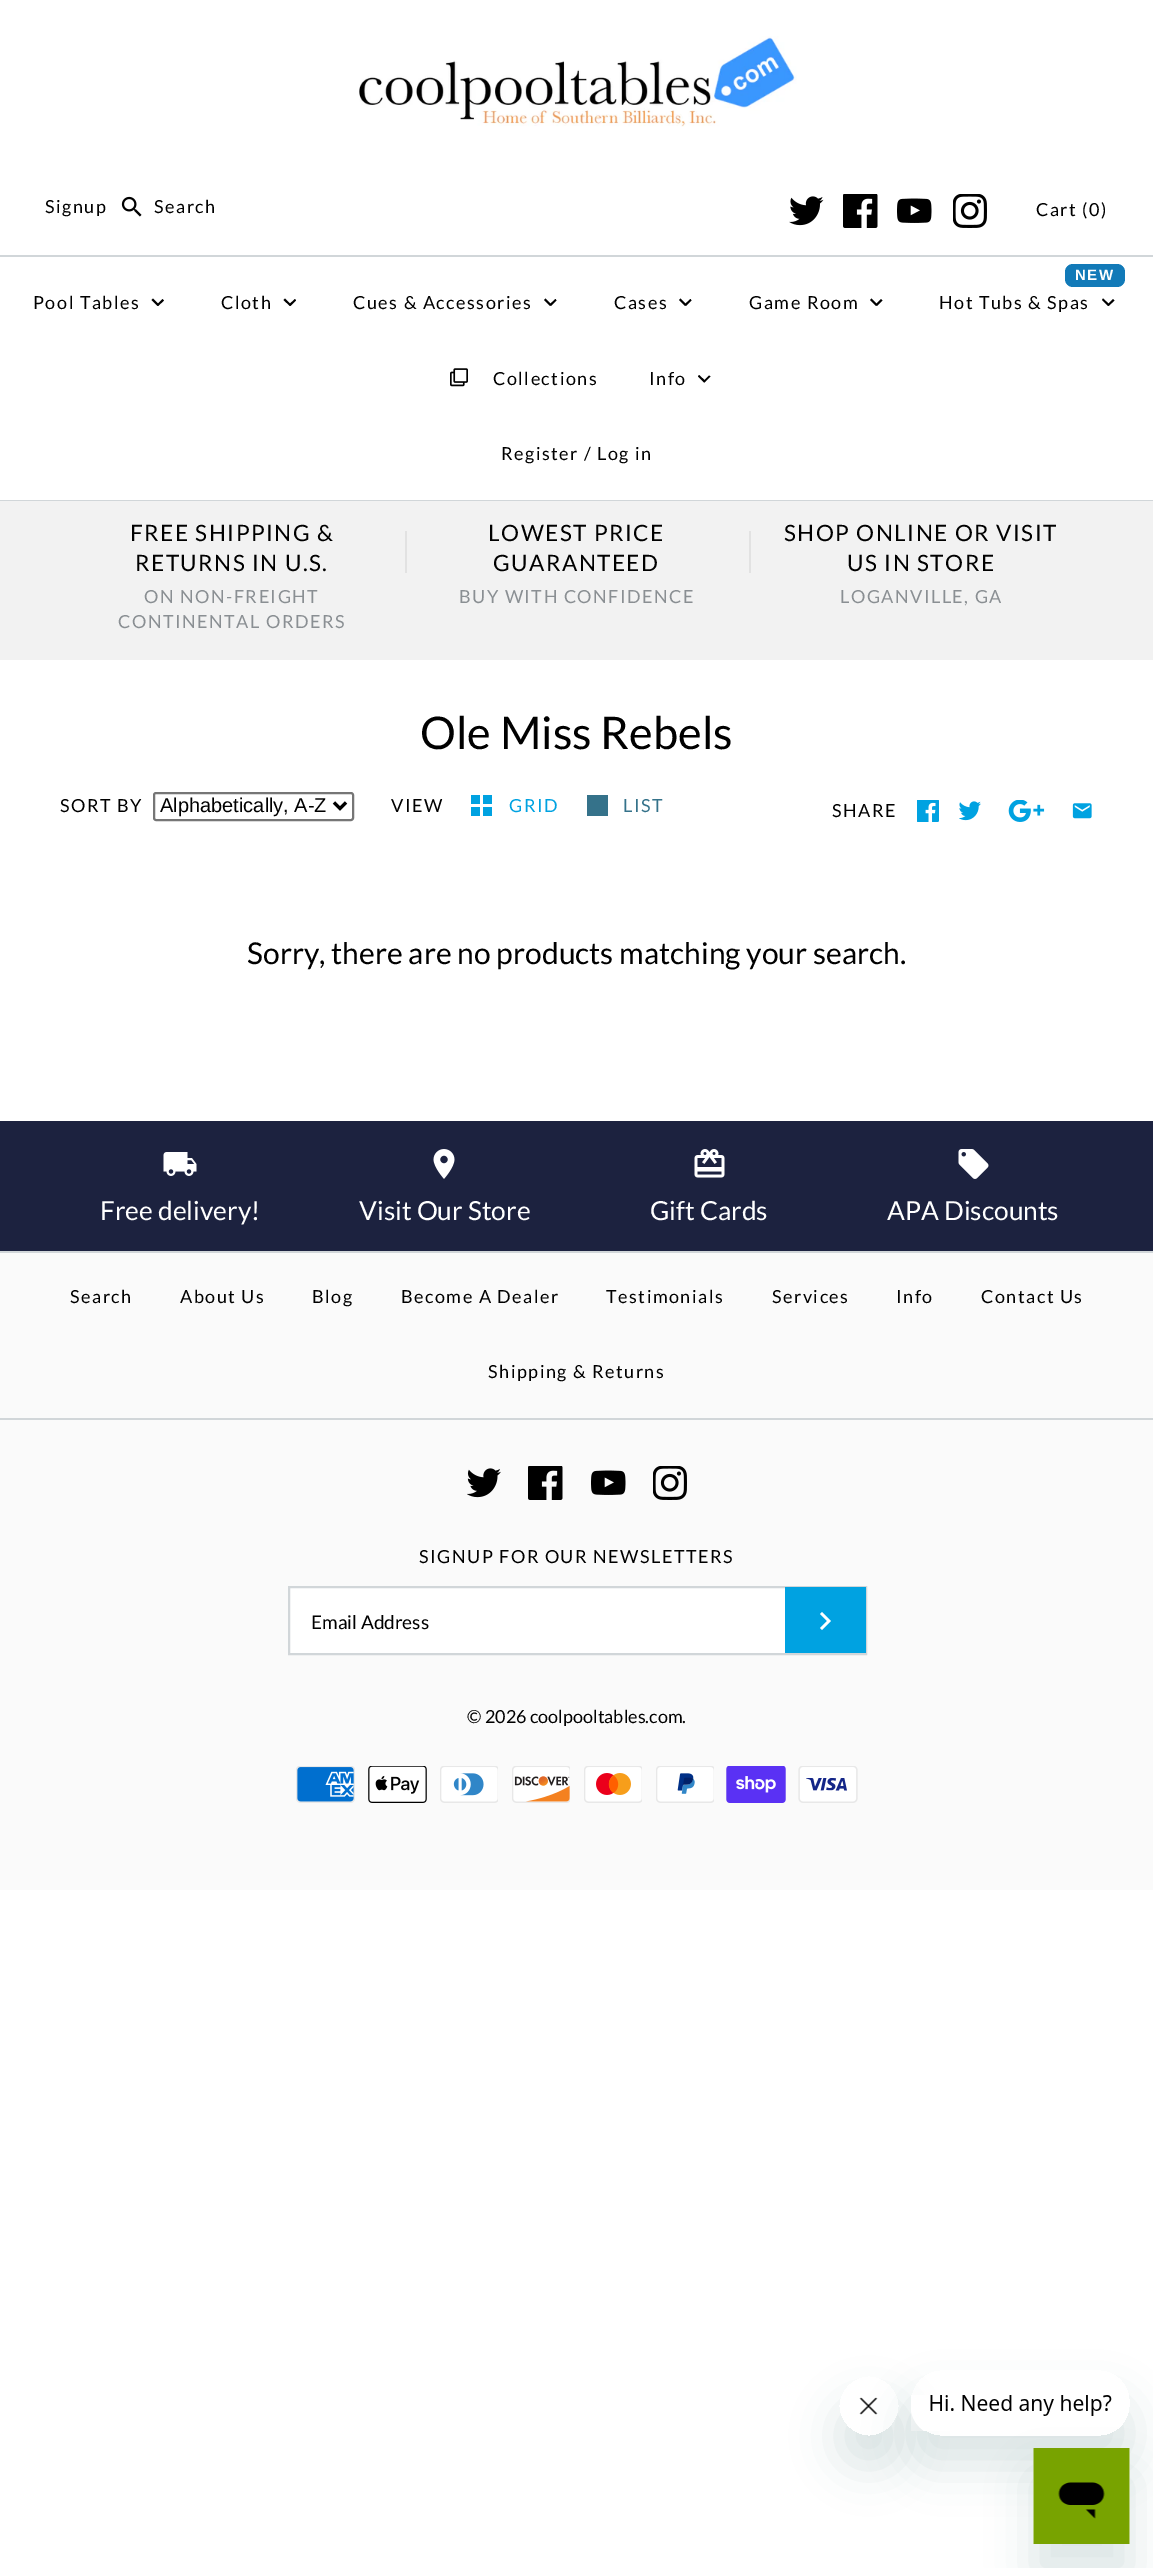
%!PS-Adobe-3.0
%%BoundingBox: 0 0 1153 2568
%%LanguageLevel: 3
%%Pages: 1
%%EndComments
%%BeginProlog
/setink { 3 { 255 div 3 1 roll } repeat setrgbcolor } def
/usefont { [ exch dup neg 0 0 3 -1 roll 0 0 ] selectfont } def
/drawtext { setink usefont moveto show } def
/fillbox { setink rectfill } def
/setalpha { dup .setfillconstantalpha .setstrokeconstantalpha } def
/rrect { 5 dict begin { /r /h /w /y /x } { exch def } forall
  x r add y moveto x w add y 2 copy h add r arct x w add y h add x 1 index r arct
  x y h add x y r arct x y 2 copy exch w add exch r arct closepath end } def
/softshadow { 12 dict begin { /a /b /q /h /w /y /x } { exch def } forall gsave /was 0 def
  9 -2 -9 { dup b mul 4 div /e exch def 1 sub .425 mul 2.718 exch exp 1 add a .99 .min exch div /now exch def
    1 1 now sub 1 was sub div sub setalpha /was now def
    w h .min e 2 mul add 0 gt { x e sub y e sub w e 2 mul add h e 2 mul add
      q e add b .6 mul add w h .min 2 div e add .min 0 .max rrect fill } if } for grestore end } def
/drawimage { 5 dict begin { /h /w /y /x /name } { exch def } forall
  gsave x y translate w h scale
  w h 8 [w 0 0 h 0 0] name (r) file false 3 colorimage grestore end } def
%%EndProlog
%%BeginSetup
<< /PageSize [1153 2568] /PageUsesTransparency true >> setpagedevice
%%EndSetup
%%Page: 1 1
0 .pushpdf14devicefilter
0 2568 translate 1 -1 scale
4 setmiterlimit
0 0 1153 2568 255 255 255 fillbox
(assets/img1.rgb) 359 36 438 91 drawimage
/Lato-Regular 18 usefont
0 0 0 setink
45 213 moveto 1.5 0 (Signup) ashow
(assets/img2.rgb) 121 196 21 21 drawimage
154 213 moveto 1.5 0 (Search) ashow
(assets/img3.rgb) 789 196 35 30 drawimage
(assets/img4.rgb) 843 194 35 34 drawimage
(assets/img5.rgb) 897 198 35 25 drawimage
(assets/img6.rgb) 953 194 34 34 drawimage
1036 216 moveto 1.5 0 (Cart \(0\)) ashow
0 500 1153 1 209 214 217 fillbox
0 255 1153 2 209 214 217 fillbox
0 0 0 setink
33 309 moveto 1.5 0 (Pool Tables) ashow
162.5 299 moveto 164 300.5 lineto 158 306 lineto 157 304.5 lineto closepath fill
153 298.5 moveto 159 304.5 lineto 157.5 306 lineto 151.5 300 lineto closepath fill
221 309 moveto 1.5 0 (Cloth) ashow
295 299 moveto 296 300.5 lineto 290.5 306 lineto 289 304.5 lineto closepath fill
285 298.5 moveto 291 304.5 lineto 290 306 lineto 283.5 300 lineto closepath fill
353 309 moveto 1.5 0 (Cues & Accessories) ashow
555.5 299 moveto 556.5 300.5 lineto 551 306 lineto 549.5 304.5 lineto closepath fill
545.5 298.5 moveto 551.5 304.5 lineto 550 306 lineto 544 300 lineto closepath fill
614 309 moveto 1.5 0 (Cases) ashow
690.5 299 moveto 691.5 300.5 lineto 686 306 lineto 684.5 304.5 lineto closepath fill
680.5 298.5 moveto 686.5 304.5 lineto 685 306 lineto 679 300 lineto closepath fill
749 309 moveto 1.5 0 (Game Room) ashow
881 299 moveto 882.5 300.5 lineto 877 306 lineto 875.5 304.5 lineto closepath fill
871.5 298.5 moveto 877.5 304.5 lineto 876 306 lineto 870 300 lineto closepath fill
18 122 184 setink
1065 264 60 23 8 rrect fill
/LiberationSans-Bold 15 usefont
255 255 255 setink
1075 280 moveto 1.5 0 (NEW) ashow
/Lato-Regular 18 usefont
0 0 0 setink
939 309 moveto 1.5 0 (Hot Tubs & Spas) ashow
1113 299 moveto 1114.5 300.5 lineto 1108.5 306 lineto 1107.5 304.5 lineto closepath fill
1103 298.5 moveto 1109.5 304.5 lineto 1108 306 lineto 1102 300 lineto closepath fill
(assets/img7.rgb) 450 368 18 19 drawimage
493 385 moveto 1.5 0 (Collections) ashow
649 385 moveto 1.5 0 (Info) ashow
709 375.5 moveto 710.5 376.5 lineto 704.5 382.5 lineto 703.5 381 lineto closepath fill
699 375 moveto 705.5 381 lineto 704 382.5 lineto 698 376.5 lineto closepath fill
501 460 moveto 1.5 0 (Register / Log in) ashow
0 501 1153 159 242 242 242 fillbox
/Lato-Regular 22.5 usefont
0 0 0 setink
130 541 moveto 1.5 0 (FREE SHIPPING &) ashow
135 571 moveto 1.5 0 (RETURNS IN U.S.) ashow
/Lato-Regular 18 usefont
138 143 147 setink
144 603 moveto 1.5 0 (ON NON-FREIGHT) ashow
118 628 moveto 1.5 0 (CONTINENTAL ORDERS) ashow
405 531 2 42 226 226 226 fillbox
/Lato-Regular 22.5 usefont
0 0 0 setink
488 541 moveto 1.5 0 (LOWEST PRICE) ashow
493 571 moveto 1.5 0 (GUARANTEED) ashow
/Lato-Regular 18 usefont
138 143 147 setink
459 603 moveto 1.5 0 (BUY WITH CONFIDENCE) ashow
749 531 2 42 226 226 226 fillbox
/Lato-Regular 22.5 usefont
0 0 0 setink
784 541 moveto 1.5 0 (SHOP ONLINE OR VISIT) ashow
847 571 moveto 1.5 0 (US IN STORE) ashow
/Lato-Regular 18 usefont
138 143 147 setink
840 603 moveto 1.5 0 (LOGANVILLE, GA) ashow
(Ole Miss Rebels) 420 749 /Lato-Regular 45 0 0 0 drawtext
/Lato-Regular 18 usefont
60 812 moveto 1.5 0 (SORT BY) ashow
118 118 118 setink
2 setlinewidth
154 793 199 27 2 rrect stroke
0 0 0 setink
3 setlinewidth
334 802.5 moveto 340 808.5 lineto 346 802.5 lineto stroke
(Alphabetically, A-Z) 160 812 /LiberationSans-Regular 20 0 0 0 drawtext
/Lato-Regular 18 usefont
391 812 moveto 1.5 0 (VIEW) ashow
471 795 9 9 0 162 225 fillbox
483 795 9 9 0 162 225 fillbox
509 812 moveto 1.5 0 (GRID) ashow
471 807 9 9 0 162 225 fillbox
483 807 9 9 0 162 225 fillbox
587 795 21 21 53 114 138 fillbox
623 812 moveto 1.5 0 (LIST) ashow
0 0 0 setink
832 817 moveto 1.5 0 (SHARE) ashow
(assets/img8.rgb) 917 800 22 22 drawimage
(assets/img9.rgb) 959 801 22 20 drawimage
(assets/img10.rgb) 1008 800 37 22 drawimage
(assets/img11.rgb) 1072 803 20 16 drawimage
(Sorry, there are no products matching your search.) 247 964 /Lato-Regular 30 0 0 0 drawtext
0 1253 1153 637 250 250 250 fillbox
0 1121 1153 130 28 34 63 fillbox
(assets/img12.rgb) 163 1152 34 24 drawimage
(Free delivery!) 100 1220 /Lato-Regular 26.25 255 255 255 drawtext
(assets/img13.rgb) 433 1149 22 30 drawimage
(Visit Our Store) 359 1220 /Lato-Regular 26.25 255 255 255 drawtext
(assets/img14.rgb) 694 1149 31 29 drawimage
(Gift Cards) 650 1220 /Lato-Regular 26.25 255 255 255 drawtext
(assets/img15.rgb) 958 1149 31 30 drawimage
(APA Discounts) 887 1220 /Lato-Regular 26.25 255 255 255 drawtext
0 1251 1153 2 209 214 217 fillbox
0 1418 1153 2 209 214 217 fillbox
/Lato-Regular 18 usefont
0 0 0 setink
70 1303 moveto 1.5 0 (Search) ashow
180 1303 moveto 1.5 0 (About Us) ashow
312 1303 moveto 1.5 0 (Blog) ashow
401 1303 moveto 1.5 0 (Become A Dealer) ashow
606 1303 moveto 1.5 0 (Testimonials) ashow
772 1303 moveto 1.5 0 (Services) ashow
896 1303 moveto 1.5 0 (Info) ashow
981 1303 moveto 1.5 0 (Contact Us) ashow
488 1378 moveto 1.5 0 (Shipping & Returns) ashow
(assets/img16.rgb) 467 1468 34 30 drawimage
(assets/img17.rgb) 528 1466 35 34 drawimage
(assets/img18.rgb) 591 1470 35 25 drawimage
(assets/img19.rgb) 653 1466 34 34 drawimage
419 1563 moveto 1.5 0 (SIGNUP FOR OUR NEWSLETTERS) ashow
290 1588 495 65 255 255 255 fillbox
209 214 217 setink
2 setlinewidth
289 1587 577 67 rectstroke
(Email Address) 311 1629 /Lato-Regular 19 0 0 0 drawtext
785 1587 81 66 0 162 225 fillbox
255 255 255 setink
820 1628 moveto 827 1621 lineto 820 1614 lineto 822 1612 lineto 831 1621 lineto 822 1630 lineto closepath fill
(© 2026 coolpooltables.com.) 467 1723 /Lato-Regular 18 0 0 0 drawtext
(assets/img20.rgb) 296 1766 59 37 drawimage
(assets/img21.rgb) 368 1766 59 37 drawimage
(assets/img22.rgb) 440 1766 58 37 drawimage
(assets/img23.rgb) 512 1766 58 37 drawimage
(assets/img24.rgb) 584 1766 58 37 drawimage
(assets/img25.rgb) 656 1766 58 37 drawimage
(assets/img26.rgb) 726 1766 60 37 drawimage
(assets/img27.rgb) 798 1766 60 37 drawimage
gsave
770 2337 moveto 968 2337 lineto 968 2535 lineto 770 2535 lineto closepath 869 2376 moveto 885.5 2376 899 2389.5 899 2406 curveto 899 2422.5 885.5 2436 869 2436 curveto 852.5 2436 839 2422.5 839 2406 curveto 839 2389.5 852.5 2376 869 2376 curveto closepath eoclip newpath
23 73 77 setink
839 2406 60 60 30 22.5 0.15 softshadow
grestore
(assets/img29.rgb) 859 2397 19 18 drawimage
gsave
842 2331 moveto 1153 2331 lineto 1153 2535 lineto 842 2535 lineto closepath 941 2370 moveto 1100 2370 lineto 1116.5 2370 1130 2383.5 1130 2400 curveto 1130 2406 lineto 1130 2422.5 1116.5 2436 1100 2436 curveto 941 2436 lineto 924.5 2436 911 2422.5 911 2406 curveto 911 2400 lineto 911 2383.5 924.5 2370 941 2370 curveto closepath eoclip newpath
23 73 77 setink
911 2400 219 66 30 22.5 0.15 softshadow
grestore
(assets/img28.rgb) 911 2395 201 36 drawimage
23 73 77 setink
1034 2478 96 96 0 22.5 0.15 softshadow
(assets/img30.rgb) 1033 2448 97 96 drawimage
.poppdf14devicefilter showpage
%%EOF
